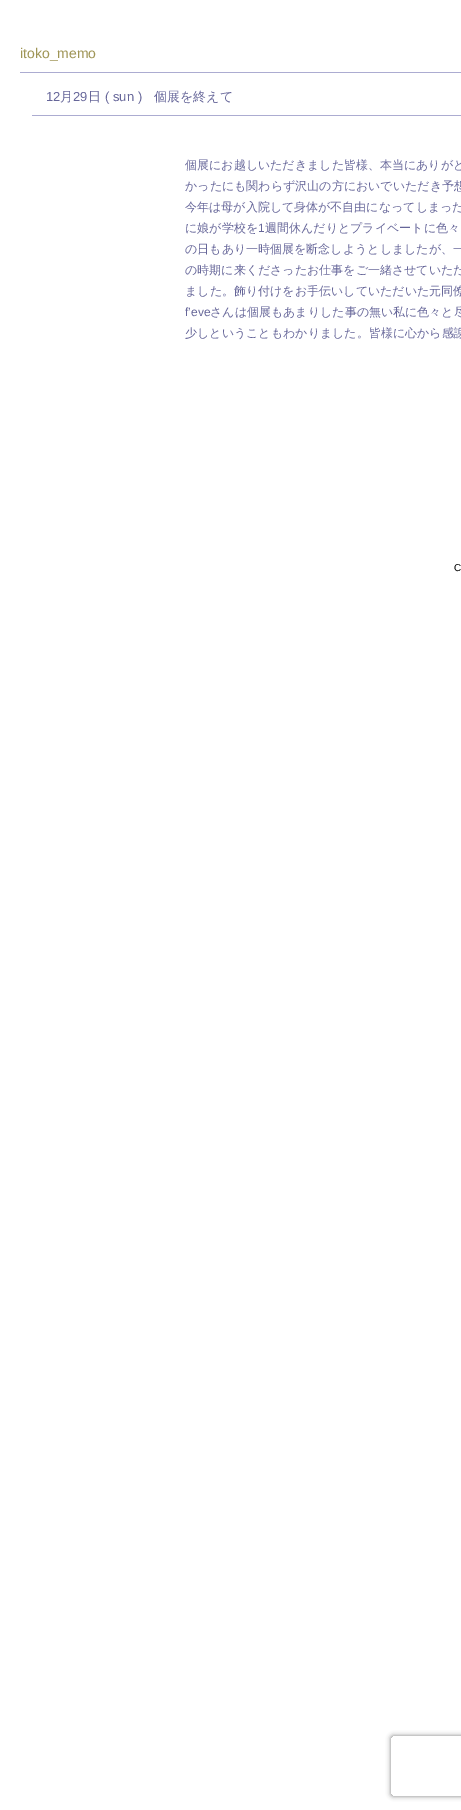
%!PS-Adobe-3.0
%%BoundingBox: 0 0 461 1810
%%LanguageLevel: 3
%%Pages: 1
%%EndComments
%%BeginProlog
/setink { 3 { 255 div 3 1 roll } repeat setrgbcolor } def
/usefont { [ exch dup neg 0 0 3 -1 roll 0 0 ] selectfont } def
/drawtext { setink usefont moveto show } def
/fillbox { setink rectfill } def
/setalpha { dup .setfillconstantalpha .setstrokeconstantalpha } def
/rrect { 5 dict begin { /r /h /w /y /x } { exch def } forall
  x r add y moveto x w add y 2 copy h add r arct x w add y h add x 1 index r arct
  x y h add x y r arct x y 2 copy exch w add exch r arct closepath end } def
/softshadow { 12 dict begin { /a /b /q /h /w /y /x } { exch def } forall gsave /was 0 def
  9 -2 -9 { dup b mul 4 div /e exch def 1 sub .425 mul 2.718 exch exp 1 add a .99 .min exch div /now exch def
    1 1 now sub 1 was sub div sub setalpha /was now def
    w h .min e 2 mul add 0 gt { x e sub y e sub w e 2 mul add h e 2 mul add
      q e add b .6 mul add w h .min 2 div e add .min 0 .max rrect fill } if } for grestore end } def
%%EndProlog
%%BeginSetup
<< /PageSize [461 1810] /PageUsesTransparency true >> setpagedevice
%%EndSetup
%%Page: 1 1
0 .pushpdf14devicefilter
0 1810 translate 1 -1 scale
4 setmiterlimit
0 0 461 1810 255 255 255 fillbox
(itoko_memo) 20 58 /LiberationSans-Regular 14 159 149 86 drawtext
20 72 441 1 172 172 209 fillbox
32 115 429 1 172 172 209 fillbox
(12) 46 101 /LiberationSans-Regular 13 102 102 153 drawtext
(月) 60 101 /WenQuanYiZenHei-Medium 13 102 102 153 drawtext
(29) 73 101 /LiberationSans-Regular 13 102 102 153 drawtext
(日) 88 101 /WenQuanYiZenHei-Medium 13 102 102 153 drawtext
(\( sun \)) 105 101 /LiberationSans-Regular 13 102 102 153 drawtext
(個展を終えて) 154 101 /WenQuanYiZenHei-Medium 13 102 102 153 drawtext
(個展にお越しいただきました皆様、本当にありがと) 185 169 /WenQuanYiZenHei-Medium 12 102 102 153 drawtext
(かったにも関わらず沢山の方においでいただき予想) 185 190 /WenQuanYiZenHei-Medium 12 102 102 153 drawtext
(今年は母が入院して身体が不自由になってしまった) 185 211 /WenQuanYiZenHei-Medium 12 102 102 153 drawtext
(に娘が学校を) 185 232 /WenQuanYiZenHei-Medium 12 102 102 153 drawtext
(1) 258 232 /LiberationSans-Regular 12 102 102 153 drawtext
(週間休んだりとプライベートに色々) 265 232 /WenQuanYiZenHei-Medium 12 102 102 153 drawtext
(の日もあり一時個展を断念しようとしましたが、一) 185 253 /WenQuanYiZenHei-Medium 12 102 102 153 drawtext
(の時期に来くださったお仕事をご一緒させていただ) 185 274 /WenQuanYiZenHei-Medium 12 102 102 153 drawtext
(ました。飾り付けをお手伝いしていただいた元同僚) 185 295 /WenQuanYiZenHei-Medium 12 102 102 153 drawtext
(f’eve) 185 316 /LiberationSans-Regular 12 102 102 153 drawtext
(さんは個展もあまりした事の無い私に色々と尽) 210 316 /WenQuanYiZenHei-Medium 12 102 102 153 drawtext
(少しということもわかりました。皆様に心から感謝) 185 337 /WenQuanYiZenHei-Medium 12 102 102 153 drawtext
(C) 454 571 /LiberationSans-Regular 10 0 0 0 drawtext
gsave
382 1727 moveto 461 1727 lineto 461 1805 lineto 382 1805 lineto closepath 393 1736 moveto 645 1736 lineto 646 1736 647 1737 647 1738 curveto 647 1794 lineto 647 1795 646 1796 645 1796 curveto 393 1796 lineto 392 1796 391 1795 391 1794 curveto 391 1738 lineto 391 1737 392 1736 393 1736 curveto closepath eoclip newpath
128 128 128 setink
391 1736 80 60 2 2.5 1 softshadow
grestore
.poppdf14devicefilter showpage
%%EOF
